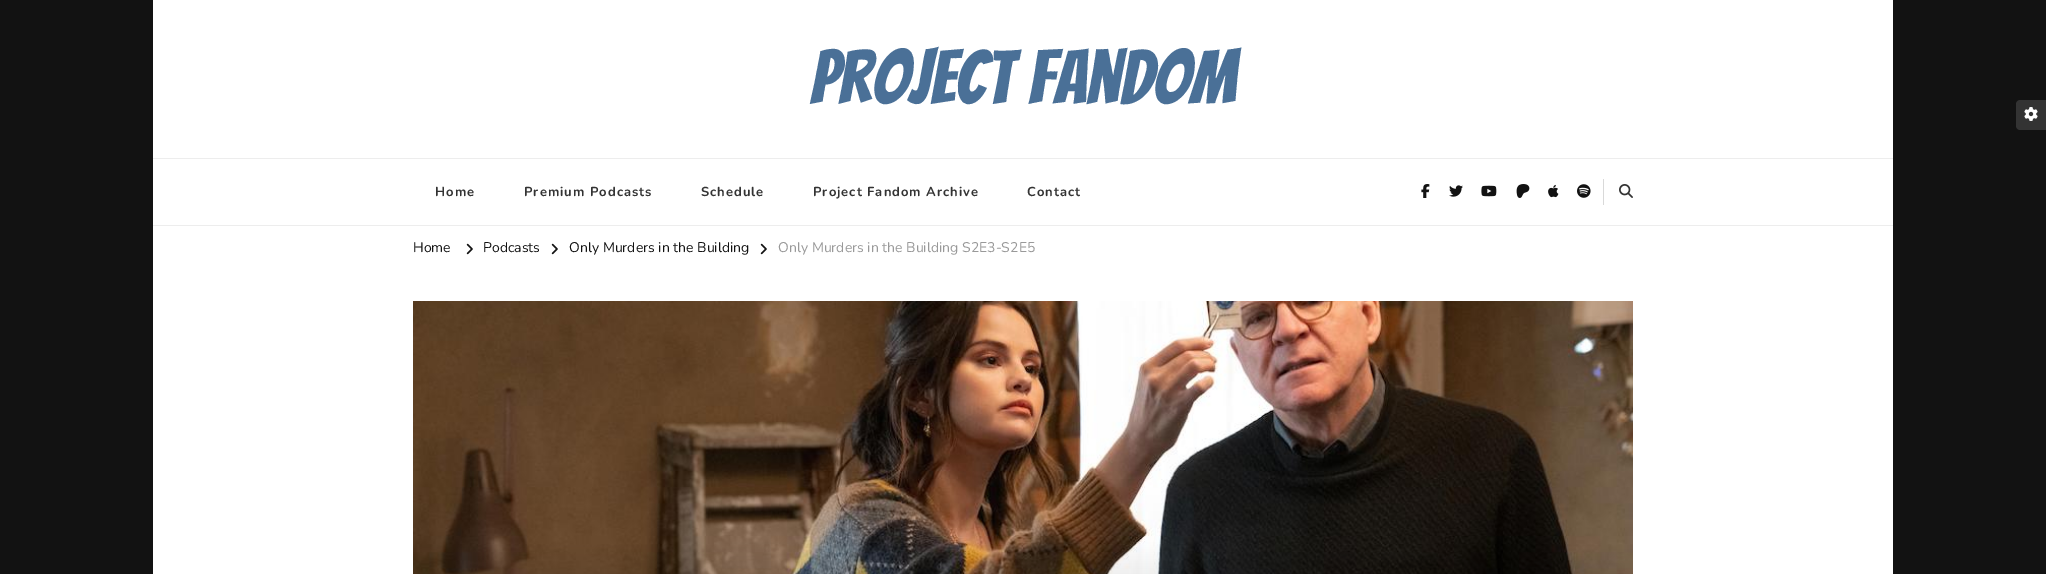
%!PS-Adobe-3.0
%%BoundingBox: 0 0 2046 574
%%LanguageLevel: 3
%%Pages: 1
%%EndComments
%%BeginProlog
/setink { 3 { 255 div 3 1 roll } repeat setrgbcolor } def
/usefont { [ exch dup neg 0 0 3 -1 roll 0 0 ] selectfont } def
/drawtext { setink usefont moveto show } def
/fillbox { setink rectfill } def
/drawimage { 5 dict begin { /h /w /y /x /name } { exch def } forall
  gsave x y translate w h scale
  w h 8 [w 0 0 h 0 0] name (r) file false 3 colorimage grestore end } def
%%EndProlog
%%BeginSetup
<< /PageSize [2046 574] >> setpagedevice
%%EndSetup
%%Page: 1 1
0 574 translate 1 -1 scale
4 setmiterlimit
0 0 2046 574 18 18 18 fillbox
153 0 1740 574 255 255 255 fillbox
(Project Fandom) 810 104 /Bangers-Regular 75 74 112 151 drawtext
153 158 1740 1 237 237 237 fillbox
153 225 1740 1 237 237 237 fillbox
/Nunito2-ExtraLight 13 usefont
51 51 51 setink
435 196 moveto 1 0 (Home) ashow
524 196 moveto 1 0 (Premium Podcasts) ashow
701 196 moveto 1 0 (Schedule) ashow
813 196 moveto 1 0 (Project Fandom Archive) ashow
1027 196 moveto 1 0 (Contact) ashow
(assets/img1.rgb) 1421 184 9 14 drawimage
(assets/img2.rgb) 1449 185 14 12 drawimage
(assets/img3.rgb) 1481 185 16 12 drawimage
(assets/img4.rgb) 1516 184 14 14 drawimage
(assets/img5.rgb) 1548 184 11 14 drawimage
(assets/img6.rgb) 1577 184 14 14 drawimage
1603 179 1 26 217 217 217 fillbox
(assets/img7.rgb) 1619 184 14 14 drawimage
51 51 51 setink
2020 100 moveto 2046 100 lineto 2046 130 lineto 2020 130 lineto 2018 130 2016 128 2016 126 curveto 2016 104 lineto 2016 102 2018 100 2020 100 curveto closepath fill
(assets/img8.rgb) 2024 107 14 14 drawimage
(Home) 413 252 /Nunito-ExtraLight 14 18 18 18 drawtext
(assets/img9.rgb) 466 243 7 12 drawimage
(Podcasts) 483 252 /Nunito-ExtraLight 14 18 18 18 drawtext
(assets/img9.rgb) 551 243 7 12 drawimage
(Only Murders in the Building) 569 252 /Nunito-ExtraLight 14 18 18 18 drawtext
(assets/img9.rgb) 760 243 7 12 drawimage
(Only Murders in the Building S2E3-S2E5) 778 252 /Nunito-ExtraLight 14 153 153 153 drawtext
(assets/img10.rgb) 413 301 1220 273 drawimage
showpage
%%EOF
